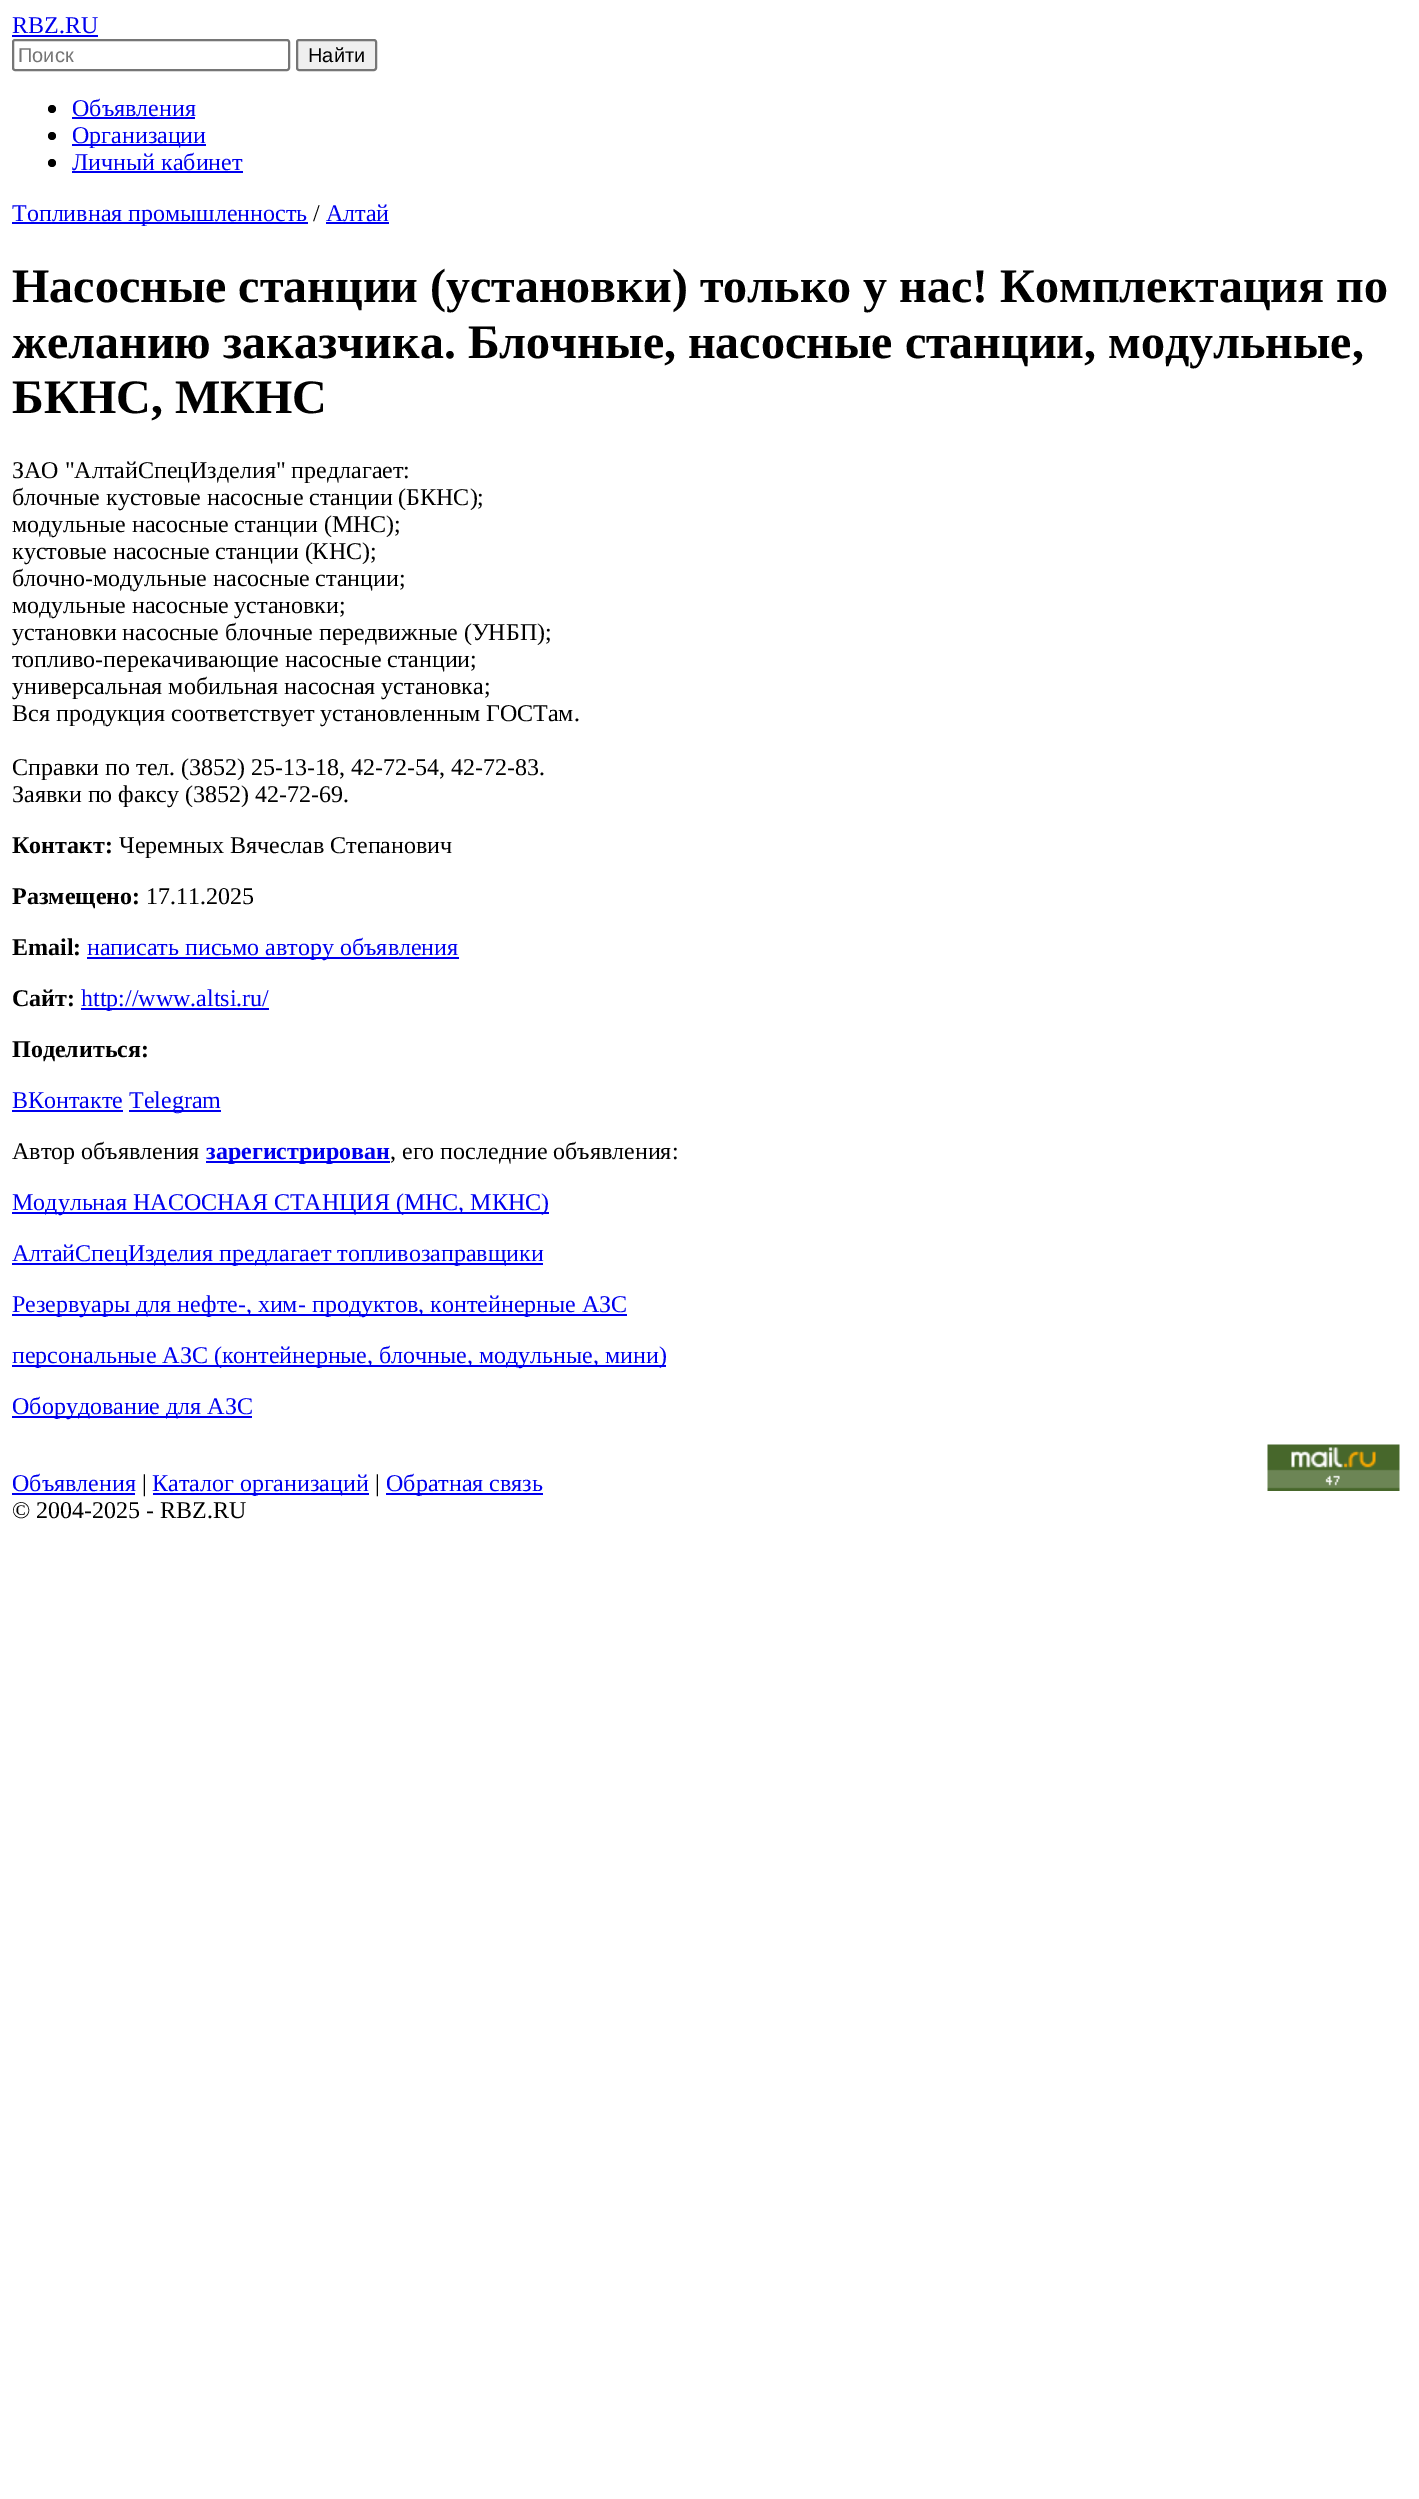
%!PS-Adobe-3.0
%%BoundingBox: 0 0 1419 2499
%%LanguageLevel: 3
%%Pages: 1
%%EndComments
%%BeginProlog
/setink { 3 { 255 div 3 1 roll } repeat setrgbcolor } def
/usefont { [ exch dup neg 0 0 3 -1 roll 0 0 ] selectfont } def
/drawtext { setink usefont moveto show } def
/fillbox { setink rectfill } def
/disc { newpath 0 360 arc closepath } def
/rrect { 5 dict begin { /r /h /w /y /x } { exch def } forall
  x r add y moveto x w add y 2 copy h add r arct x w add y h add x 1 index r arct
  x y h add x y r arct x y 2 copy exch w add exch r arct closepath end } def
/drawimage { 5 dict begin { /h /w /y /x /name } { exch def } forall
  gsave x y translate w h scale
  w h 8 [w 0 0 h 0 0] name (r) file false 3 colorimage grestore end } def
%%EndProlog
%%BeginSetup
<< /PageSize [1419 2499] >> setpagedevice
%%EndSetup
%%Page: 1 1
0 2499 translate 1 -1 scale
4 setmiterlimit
0 0 1419 2499 255 255 255 fillbox
(RBZ.RU) 12 33 /LiberationSerif-Regular 24 0 0 238 drawtext
12 35 86 2 0 0 238 fillbox
118 118 118 setink
2 setlinewidth
13 40 276 30 2 rrect stroke
(Поиск) 18 62 /LiberationSans-Regular 20 117 117 117 drawtext
239 239 239 setink
297 40 79 30 2 rrect gsave fill grestore
118 118 118 setink
stroke
(Найти) 308 62 /LiberationSans-Regular 20 0 0 0 drawtext
52 109 4 disc fill
(Объявления) 72 116 /LiberationSerif-Regular 24 0 0 238 drawtext
72 117 123 2 0 0 238 fillbox
0 0 0 setink
52 136 4 disc fill
72 144 134 2 0 0 238 fillbox
(Организации) 72 143 /LiberationSerif-Regular 24 0 0 238 drawtext
0 0 0 setink
52 163 4 disc fill
(Личный кабинет) 72 170 /LiberationSerif-Regular 24 0 0 238 drawtext
72 171 171 2 0 0 238 fillbox
12 222 296 2 0 0 238 fillbox
(Топливная промышленность) 12 221 /LiberationSerif-Regular 24 0 0 238 drawtext
(/) 313 221 /LiberationSerif-Regular 24 0 0 0 drawtext
(Алтай) 326 221 /LiberationSerif-Regular 24 0 0 238 drawtext
326 222 63 2 0 0 238 fillbox
(Насосные станции \(установки\) только у нас! Комплектация по) 12 302 /LiberationSerif-Bold 48 0 0 0 drawtext
(желанию заказчика. Блочные, насосные станции, модульные,) 12 358 /LiberationSerif-Bold 48 0 0 0 drawtext
(БКНС, МКНС) 12 413 /LiberationSerif-Bold 48 0 0 0 drawtext
(ЗАО "АлтайСпецИзделия" предлагает:) 12 478 /LiberationSerif-Regular 24 0 0 0 drawtext
(блочные кустовые насосные станции \(БКНС\);) 12 505 /LiberationSerif-Regular 24 0 0 0 drawtext
(модульные насосные станции \(МНС\);) 12 532 /LiberationSerif-Regular 24 0 0 0 drawtext
(кустовые насосные станции \(КНС\);) 12 559 /LiberationSerif-Regular 24 0 0 0 drawtext
(блочно-модульные насосные станции;) 12 586 /LiberationSerif-Regular 24 0 0 0 drawtext
(модульные насосные установки;) 12 613 /LiberationSerif-Regular 24 0 0 0 drawtext
(установки насосные блочные передвижные \(УНБП\);) 12 640 /LiberationSerif-Regular 24 0 0 0 drawtext
(топливо-перекачивающие насосные станции;) 12 667 /LiberationSerif-Regular 24 0 0 0 drawtext
(универсальная мобильная насосная установка;) 12 694 /LiberationSerif-Regular 24 0 0 0 drawtext
(Вся продукция соответствует установленным ГОСТам.) 12 721 /LiberationSerif-Regular 24 0 0 0 drawtext
(Справки по тел. \(3852\) 25-13-18, 42-72-54, 42-72-83.) 12 775 /LiberationSerif-Regular 24 0 0 0 drawtext
(Заявки по факсу \(3852\) 42-72-69.) 12 802 /LiberationSerif-Regular 24 0 0 0 drawtext
(Контакт:) 12 853 /LiberationSerif-Bold 24 0 0 0 drawtext
(Черемных Вячеслав Степанович) 119 853 /LiberationSerif-Regular 24 0 0 0 drawtext
(Размещено:) 12 904 /LiberationSerif-Bold 24 0 0 0 drawtext
(17.11.2025) 146 904 /LiberationSerif-Regular 24 0 0 0 drawtext
(Email:) 12 955 /LiberationSerif-Bold 24 0 0 0 drawtext
87 957 372 2 0 0 238 fillbox
(написать письмо автору объявления) 87 955 /LiberationSerif-Regular 24 0 0 238 drawtext
(Сайт:) 12 1006 /LiberationSerif-Bold 24 0 0 0 drawtext
81 1008 188 2 0 0 238 fillbox
(http://www.altsi.ru/) 81 1006 /LiberationSerif-Regular 24 0 0 238 drawtext
(Поделиться:) 12 1057 /LiberationSerif-Bold 24 0 0 0 drawtext
(ВКонтакте) 12 1108 /LiberationSerif-Regular 24 0 0 238 drawtext
12 1110 111 2 0 0 238 fillbox
129 1110 92 2 0 0 238 fillbox
(Telegram) 129 1108 /LiberationSerif-Regular 24 0 0 238 drawtext
(Автор объявления) 12 1159 /LiberationSerif-Regular 24 0 0 0 drawtext
206 1161 184 2 0 0 238 fillbox
(зарегистрирован) 206 1159 /LiberationSerif-Bold 24 0 0 238 drawtext
(, его последние объявления:) 390 1159 /LiberationSerif-Regular 24 0 0 0 drawtext
12 1212 537 2 0 0 238 fillbox
(Модульная НАСОСНАЯ СТАНЦИЯ \(МНС, МКНС\)) 12 1210 /LiberationSerif-Regular 24 0 0 238 drawtext
12 1263 531 2 0 0 238 fillbox
(АлтайСпецИзделия предлагает топливозаправщики) 12 1261 /LiberationSerif-Regular 24 0 0 238 drawtext
12 1314 615 2 0 0 238 fillbox
(Резервуары для нефте-, хим- продуктов, контейнерные АЗС) 12 1312 /LiberationSerif-Regular 24 0 0 238 drawtext
12 1365 654 2 0 0 238 fillbox
(персональные АЗС \(контейнерные, блочные, модульные, мини\)) 12 1363 /LiberationSerif-Regular 24 0 0 238 drawtext
12 1416 240 2 0 0 238 fillbox
(Оборудование для АЗС) 12 1414 /LiberationSerif-Regular 24 0 0 238 drawtext
(Объявления) 12 1491 /LiberationSerif-Regular 24 0 0 238 drawtext
12 1493 123 2 0 0 238 fillbox
(|) 142 1491 /LiberationSerif-Regular 24 0 0 0 drawtext
153 1493 216 2 0 0 238 fillbox
(Каталог организаций) 152 1491 /LiberationSerif-Regular 24 0 0 238 drawtext
(|) 375 1491 /LiberationSerif-Regular 24 0 0 0 drawtext
386 1493 157 2 0 0 238 fillbox
(Обратная связь) 386 1491 /LiberationSerif-Regular 24 0 0 238 drawtext
(assets/img1.rgb) 1267 1444 133 47 drawimage
(© 2004-2025 - RBZ.RU) 12 1518 /LiberationSerif-Regular 24 0 0 0 drawtext
showpage
%%EOF
